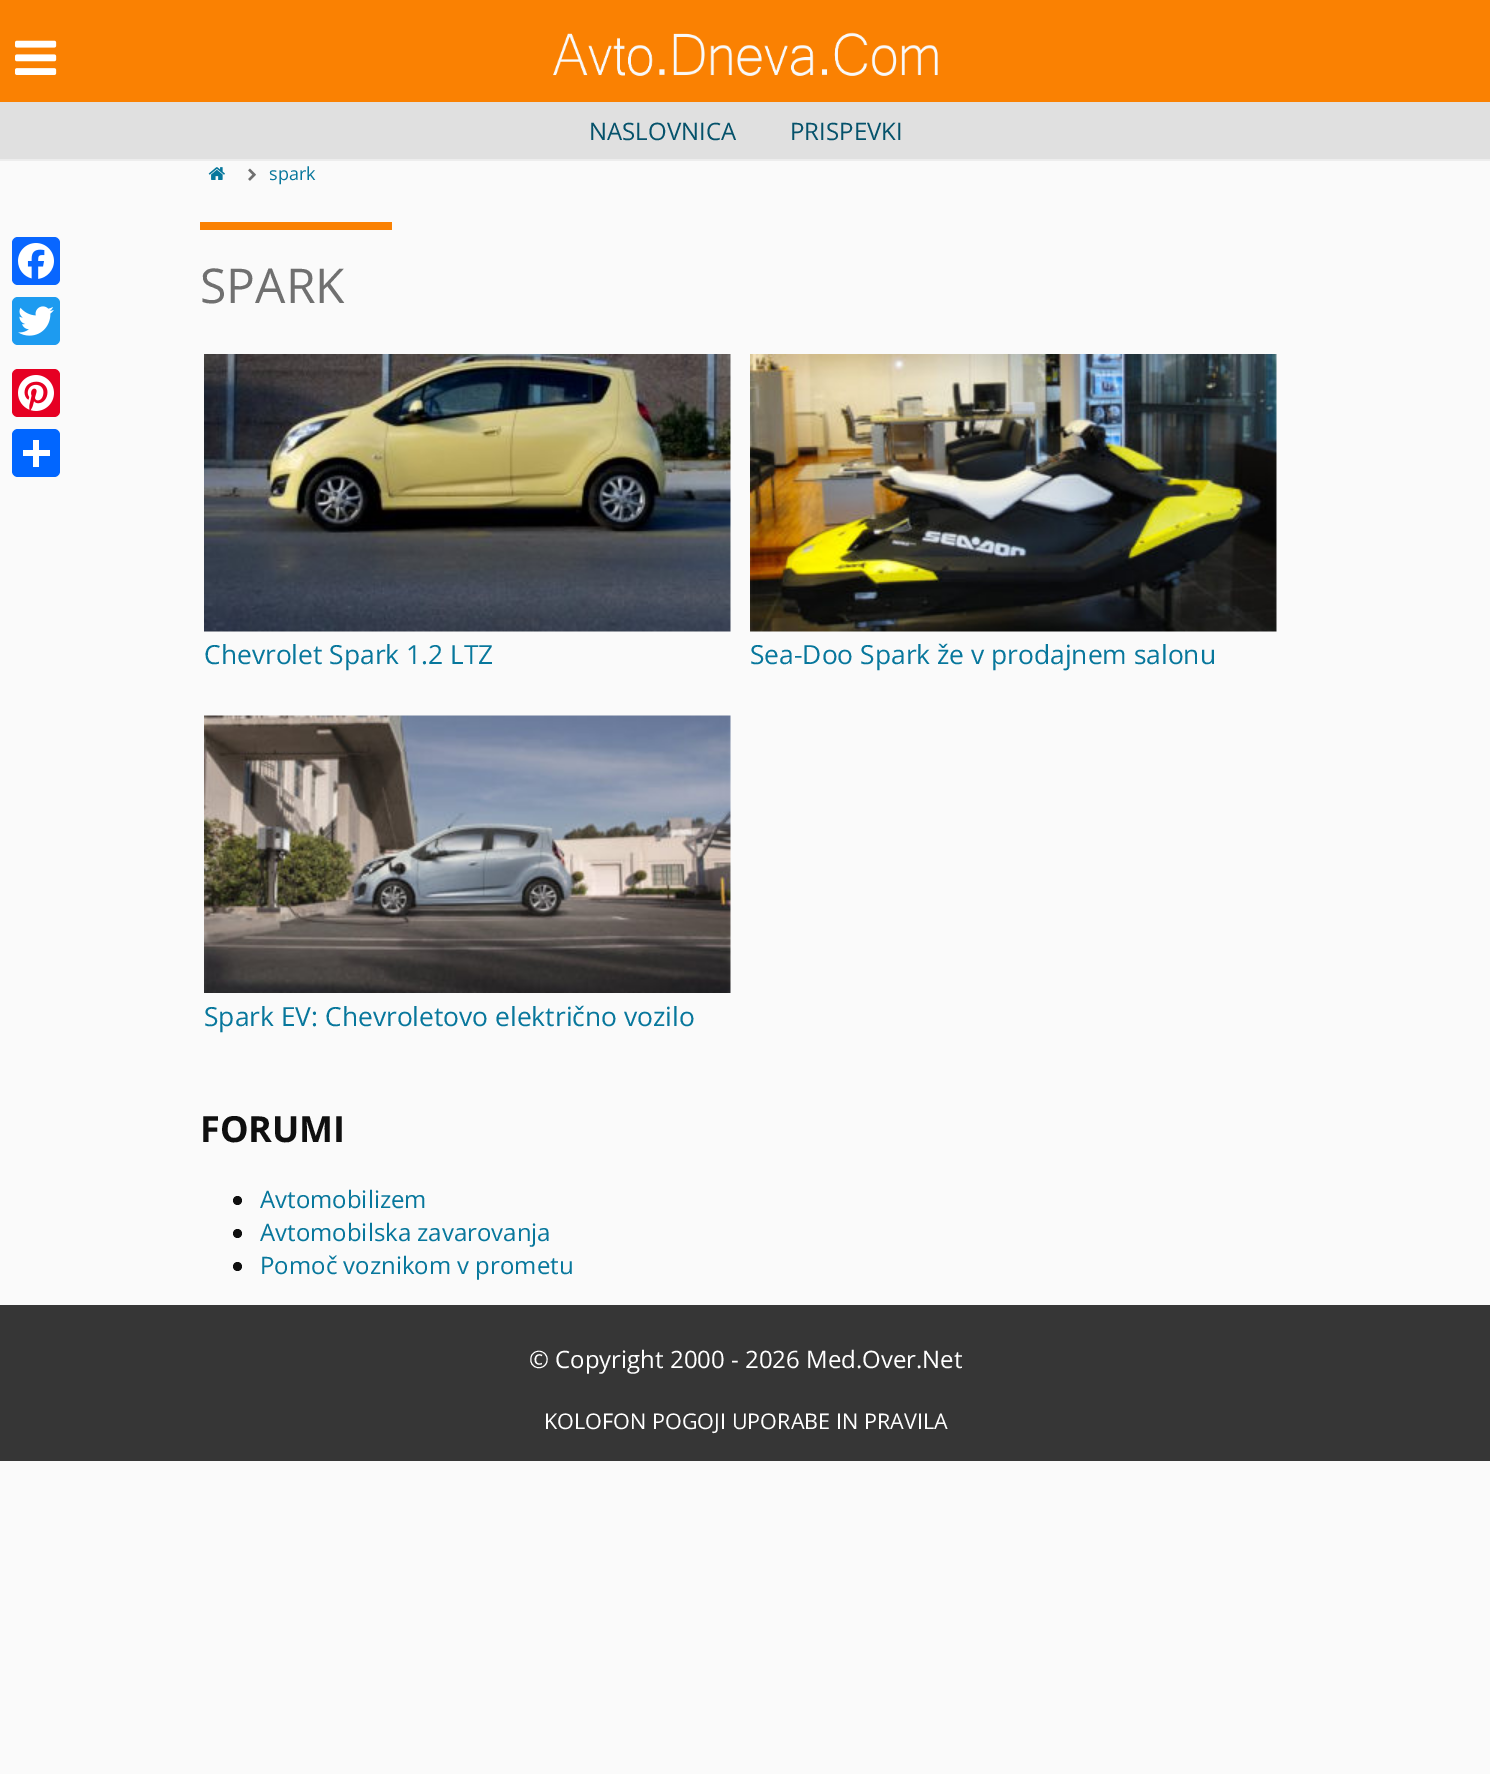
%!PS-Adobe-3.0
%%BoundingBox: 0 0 1490 1774
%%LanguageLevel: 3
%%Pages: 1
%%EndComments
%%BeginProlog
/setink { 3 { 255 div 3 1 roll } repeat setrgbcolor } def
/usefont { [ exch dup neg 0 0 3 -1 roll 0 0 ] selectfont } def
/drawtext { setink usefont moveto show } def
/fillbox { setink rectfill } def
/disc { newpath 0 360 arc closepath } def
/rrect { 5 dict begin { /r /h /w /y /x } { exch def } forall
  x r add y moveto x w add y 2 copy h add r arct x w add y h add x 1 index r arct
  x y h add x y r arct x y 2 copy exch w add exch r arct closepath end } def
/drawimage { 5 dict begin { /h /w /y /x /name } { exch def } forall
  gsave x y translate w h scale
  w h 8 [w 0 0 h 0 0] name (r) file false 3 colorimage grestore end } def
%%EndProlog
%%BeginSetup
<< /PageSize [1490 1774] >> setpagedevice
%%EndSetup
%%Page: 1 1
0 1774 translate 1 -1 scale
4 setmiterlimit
0 0 1490 1774 250 250 250 fillbox
0 0 1490 102 250 129 2 fillbox
0 159 1490 2 237 237 237 fillbox
(assets/img1.rgb) 15 40 42 35 drawimage
(assets/img2.rgb) 553 32 385 44 drawimage
0 102 1490 57 224 224 224 fillbox
(NASLOVNICA) 589 140 /OpenSans-Regular 24 5 82 107 drawtext
(PRISPEVKI) 790 140 /OpenSans-Regular 24 5 82 107 drawtext
(assets/img3.rgb) 208 167 17 13 drawimage
(assets/img4.rgb) 248 168 8 13 drawimage
(spark) 269 180 /OpenSans-Regular 18 7 119 156 drawtext
8 102 255 setink
12 237 48 48 6 rrect fill
(assets/img5.rgb) 18 243 36 36 drawimage
29 155 240 setink
12 297 48 48 6 rrect fill
(assets/img6.rgb) 18 306 36 30 drawimage
230 0 35 setink
12 369 48 48 6 rrect fill
(assets/img7.rgb) 18 375 36 36 drawimage
1 102 255 setink
12 429 48 48 6 rrect fill
33 440 6 27 255 255 255 fillbox
23 450 27 6 255 255 255 fillbox
200 222 192 8 250 129 2 fillbox
(SPARK) 200 303 /OpenSans-Regular 48 112 112 112 drawtext
(assets/img8.rgb) 204 354 527 278 drawimage
(Chevrolet Spark 1.2 LTZ) 204 664 /OpenSans-Regular 26.4 7 119 156 drawtext
(assets/img9.rgb) 750 354 527 278 drawimage
(Sea-Doo Spark že v prodajnem salonu) 750 664 /OpenSans-Regular 26.4 7 119 156 drawtext
(assets/img10.rgb) 204 715 527 278 drawimage
(Spark EV: Chevroletovo električno vozilo) 204 1026 /OpenSans-Regular 26.4 7 119 156 drawtext
(FORUMI) 200 1142 /OpenSans-Bold 36 15 15 15 drawtext
237.5 1200.5 4.5 disc fill
(Avtomobilizem) 260 1208 /OpenSans-Regular 24 7 119 156 drawtext
15 15 15 setink
237.5 1233.5 4.5 disc fill
(Avtomobilska zavarovanja) 260 1241 /OpenSans-Regular 24 7 119 156 drawtext
15 15 15 setink
237.5 1266.5 4.5 disc fill
(Pomoč voznikom v prometu) 260 1274 /OpenSans-Regular 24 7 119 156 drawtext
0 1305 1490 156 54 54 54 fillbox
(© Copyright 2000 - 2026 Med.Over.Net) 529 1368 /OpenSans-Regular 24 255 255 255 drawtext
(KOLOFON) 544 1429 /OpenSans-Regular 21.6 255 255 255 drawtext
(POGOJI UPORABE IN PRAVILA) 652 1429 /OpenSans-Regular 21.6 255 255 255 drawtext
showpage
%%EOF
